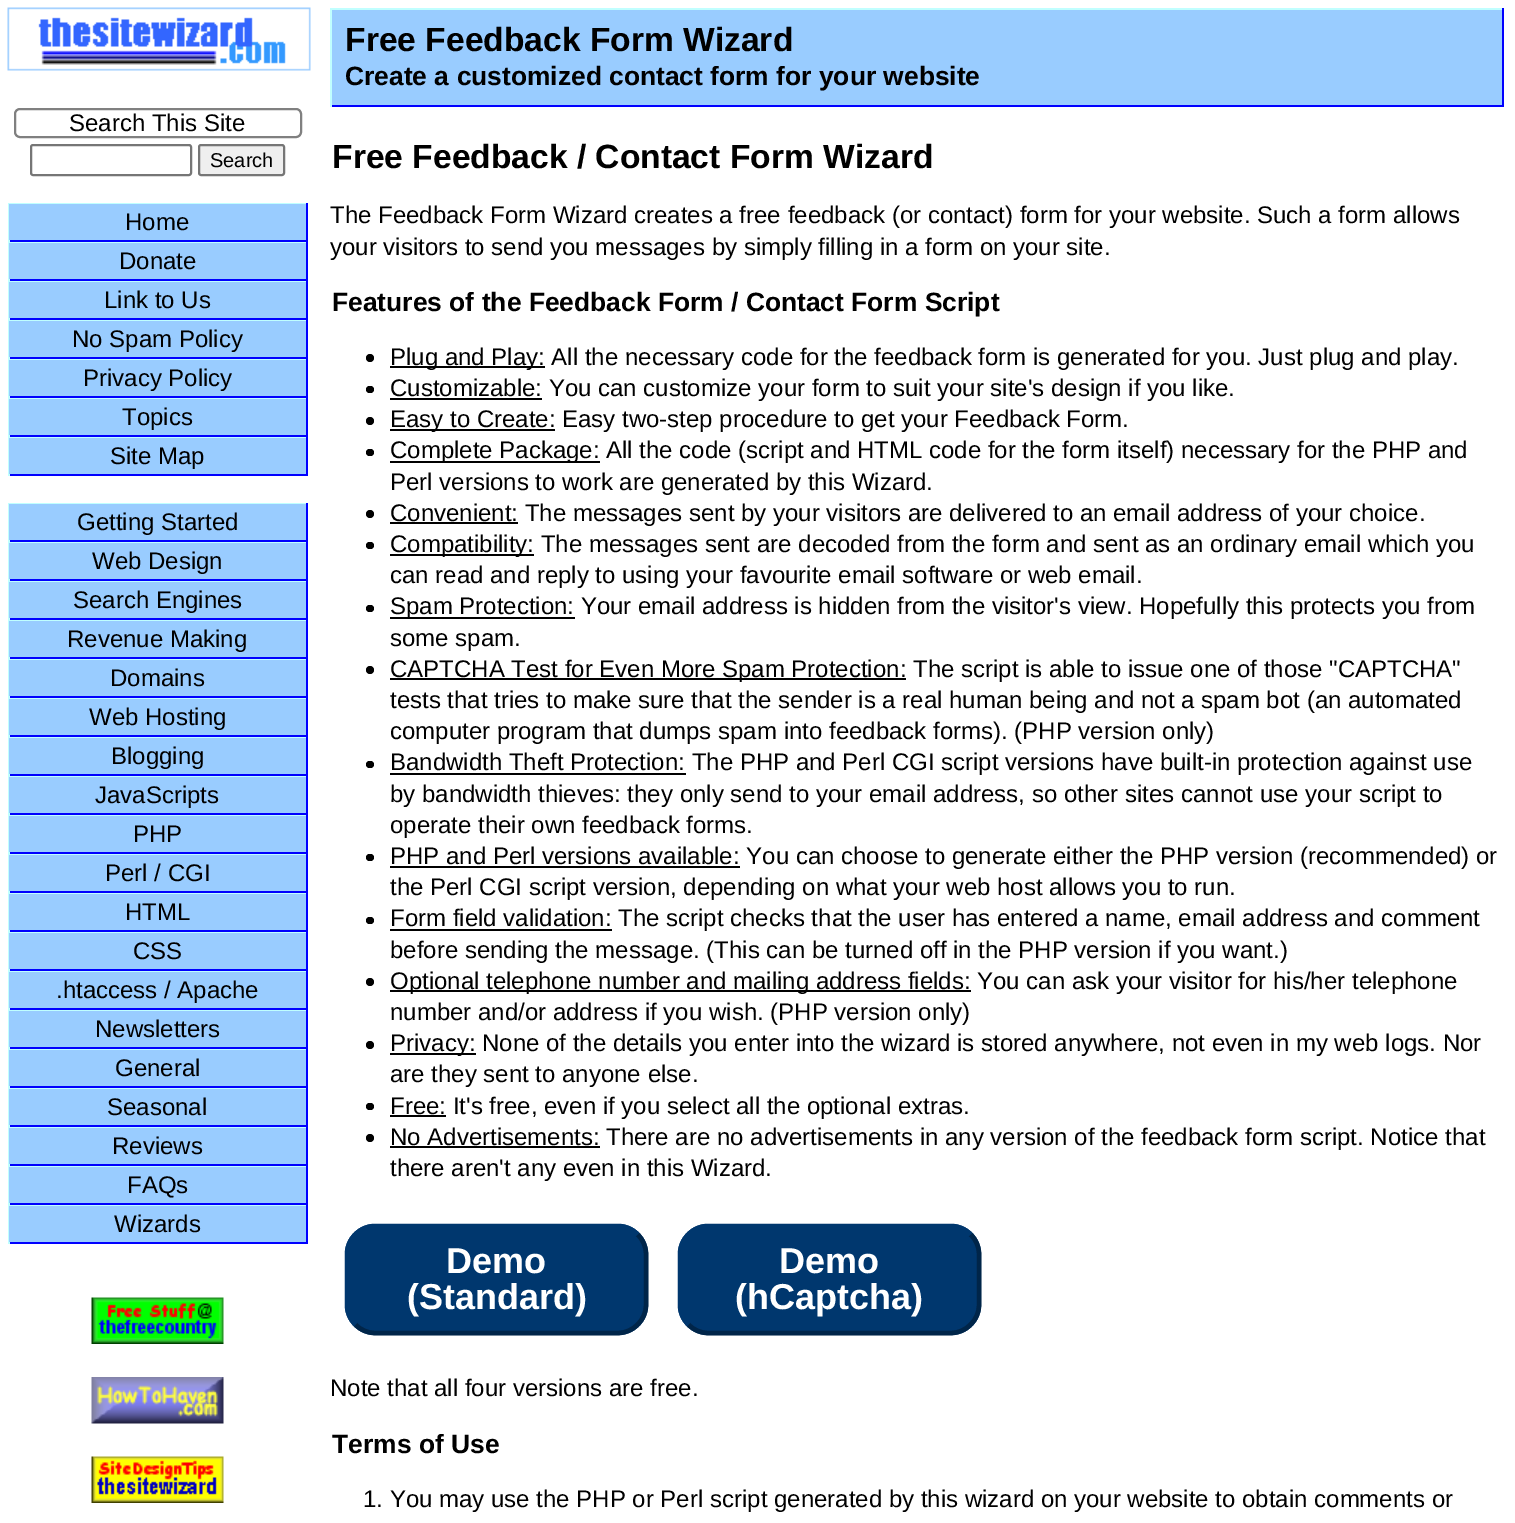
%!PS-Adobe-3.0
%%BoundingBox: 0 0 1515 1523
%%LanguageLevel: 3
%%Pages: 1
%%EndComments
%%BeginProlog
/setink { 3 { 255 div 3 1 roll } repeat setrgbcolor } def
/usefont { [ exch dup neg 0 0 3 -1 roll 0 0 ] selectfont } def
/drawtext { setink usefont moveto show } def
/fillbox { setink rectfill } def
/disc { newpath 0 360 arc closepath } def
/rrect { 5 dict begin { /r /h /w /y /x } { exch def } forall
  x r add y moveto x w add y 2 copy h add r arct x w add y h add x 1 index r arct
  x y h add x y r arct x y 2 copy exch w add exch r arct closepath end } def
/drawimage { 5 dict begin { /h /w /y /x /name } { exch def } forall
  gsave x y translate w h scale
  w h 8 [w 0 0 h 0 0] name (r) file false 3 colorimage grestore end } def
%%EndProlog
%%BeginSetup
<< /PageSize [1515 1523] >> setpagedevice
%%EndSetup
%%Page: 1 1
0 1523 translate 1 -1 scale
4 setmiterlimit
0 0 1515 1523 255 255 255 fillbox
(assets/img1.rgb) 7 7 304 64 drawimage
332 10 1170 95 153 204 255 fillbox
330 8 1173 2 192 255 255 fillbox
1502 8 2 99 0 0 255 fillbox
330 105 1173 2 0 0 255 fillbox
330 8 2 99 192 255 255 fillbox
(Free Feedback Form Wizard) 345 51 /LiberationSans-Bold 33.6 0 0 0 drawtext
(Create a customized contact form for your website) 345 85 /LiberationSans-Bold 26.4 0 0 0 drawtext
(Free Feedback / Contact Form Wizard) 332 168 /LiberationSans-Bold 33.6 0 0 0 drawtext
(The Feedback Form Wizard creates a free feedback \(or contact\) form for your website. Such a form allows) 330 223 /LiberationSans-Regular 24 0 0 0 drawtext
(your visitors to send you messages by simply filling in a form on your site.) 330 255 /LiberationSans-Regular 24 0 0 0 drawtext
(Features of the Feedback Form / Contact Form Script) 332 311 /LiberationSans-Bold 26.4 0 0 0 drawtext
370 358 4 disc fill
390 366 155 2 0 0 0 fillbox
(Plug and Play: All the necessary code for the feedback form is generated for you. Just plug and play.) 390 365 /LiberationSans-Regular 24 0 0 0 drawtext
366 386 8 7 3.5 rrect fill
390 398 152 2 0 0 0 fillbox
(Customizable: You can customize your form to suit your site's design if you like.) 390 396 /LiberationSans-Regular 24 0 0 0 drawtext
370 421 4 disc fill
390 429 165 2 0 0 0 fillbox
(Easy to Create: Easy two-step procedure to get your Feedback Form.) 390 427 /LiberationSans-Regular 24 0 0 0 drawtext
366 449 8 7 3.5 rrect fill
390 461 210 2 0 0 0 fillbox
(Complete Package: All the code \(script and HTML code for the form itself\) necessary for the PHP and) 390 458 /LiberationSans-Regular 24 0 0 0 drawtext
(Perl versions to work are generated by this Wizard.) 390 490 /LiberationSans-Regular 24 0 0 0 drawtext
370 514 4 disc fill
390 522 128 2 0 0 0 fillbox
(Convenient: The messages sent by your visitors are delivered to an email address of your choice.) 390 521 /LiberationSans-Regular 24 0 0 0 drawtext
366 542 8 7 3.5 rrect fill
390 554 144 2 0 0 0 fillbox
(Compatibility: The messages sent are decoded from the form and sent as an ordinary email which you) 390 552 /LiberationSans-Regular 24 0 0 0 drawtext
(can read and reply to using your favourite email software or web email.) 390 583 /LiberationSans-Regular 24 0 0 0 drawtext
366 605 8 7 3.5 rrect fill
390 617 185 2 0 0 0 fillbox
(Spam Protection: Your email address is hidden from the visitor's view. Hopefully this protects you from) 390 614 /LiberationSans-Regular 24 0 0 0 drawtext
(some spam.) 390 646 /LiberationSans-Regular 24 0 0 0 drawtext
370 670 4 disc fill
390 678 516 2 0 0 0 fillbox
(CAPTCHA Test for Even More Spam Protection: The script is able to issue one of those "CAPTCHA") 390 677 /LiberationSans-Regular 24 0 0 0 drawtext
(tests that tries to make sure that the sender is a real human being and not a spam bot \(an automated) 390 708 /LiberationSans-Regular 24 0 0 0 drawtext
(computer program that dumps spam into feedback forms\). \(PHP version only\)) 390 739 /LiberationSans-Regular 24 0 0 0 drawtext
366 761 8 7 3.5 rrect fill
390 773 296 2 0 0 0 fillbox
(Bandwidth Theft Protection: The PHP and Perl CGI script versions have built-in protection against use) 390 770 /LiberationSans-Regular 24 0 0 0 drawtext
(by bandwidth thieves: they only send to your email address, so other sites cannot use your script to) 390 802 /LiberationSans-Regular 24 0 0 0 drawtext
(operate their own feedback forms.) 390 833 /LiberationSans-Regular 24 0 0 0 drawtext
366 854 8 7 3.5 rrect fill
390 866 350 2 0 0 0 fillbox
(PHP and Perl versions available: You can choose to generate either the PHP version \(recommended\) or) 390 864 /LiberationSans-Regular 24 0 0 0 drawtext
(the Perl CGI script version, depending on what your web host allows you to run.) 390 895 /LiberationSans-Regular 24 0 0 0 drawtext
366 917 8 7 3.5 rrect fill
390 929 222 2 0 0 0 fillbox
(Form field validation: The script checks that the user has entered a name, email address and comment) 390 926 /LiberationSans-Regular 24 0 0 0 drawtext
(before sending the message. \(This can be turned off in the PHP version if you want.\)) 390 958 /LiberationSans-Regular 24 0 0 0 drawtext
370 982 4 disc fill
390 990 581 2 0 0 0 fillbox
(Optional telephone number and mailing address fields: You can ask your visitor for his/her telephone) 390 989 /LiberationSans-Regular 24 0 0 0 drawtext
(number and/or address if you wish. \(PHP version only\)) 390 1020 /LiberationSans-Regular 24 0 0 0 drawtext
370 1045 4 disc fill
390 1053 86 2 0 0 0 fillbox
(Privacy: None of the details you enter into the wizard is stored anywhere, not even in my web logs. Nor) 390 1051 /LiberationSans-Regular 24 0 0 0 drawtext
(are they sent to anyone else.) 390 1082 /LiberationSans-Regular 24 0 0 0 drawtext
366 1103 8 7 3.5 rrect fill
390 1115 56 2 0 0 0 fillbox
(Free: It's free, even if you select all the optional extras.) 390 1114 /LiberationSans-Regular 24 0 0 0 drawtext
370 1138 4 disc fill
390 1146 210 2 0 0 0 fillbox
(No Advertisements: There are no advertisements in any version of the feedback form script. Notice that) 390 1145 /LiberationSans-Regular 24 0 0 0 drawtext
(there aren't any even in this Wizard.) 390 1176 /LiberationSans-Regular 24 0 0 0 drawtext
0 55 110 setink
345 1224 303 111 30 rrect fill
0 37 73 setink
4.5 setlinewidth
637.5 1234.5 moveto 643 1239.5 646 1246.5 646 1254 curveto 646 1305 lineto 646 1312.5 643 1319.5 637.5 1324.5 curveto 632.5 1330 625.5 1333 618 1333 curveto 375 1333 lineto 367.5 1333 360.5 1330 355.5 1324.5 curveto stroke
0 55 110 setink
355.5 1324.5 moveto 350 1319.5 347 1312.5 347 1305 curveto 347 1254 lineto 347 1246.5 350 1239.5 355.5 1234.5 curveto 360.5 1229 367.5 1226 375 1226 curveto 618 1226 lineto 625.5 1226 632.5 1229 637.5 1234.5 curveto stroke
(Demo) 446 1273 /LiberationSans-Bold 36 255 255 255 drawtext
(\(Standard\)) 407 1309 /LiberationSans-Bold 36 255 255 255 drawtext
0 55 110 setink
678 1224 303 111 30 rrect fill
0 37 73 setink
970.5 1234.5 moveto 976 1239.5 979 1246.5 979 1254 curveto 979 1305 lineto 979 1312.5 976 1319.5 970.5 1324.5 curveto 965.5 1330 958.5 1333 951 1333 curveto 708 1333 lineto 700.5 1333 693.5 1330 688.5 1324.5 curveto stroke
0 55 110 setink
688.5 1324.5 moveto 683 1319.5 680 1312.5 680 1305 curveto 680 1254 lineto 680 1246.5 683 1239.5 688.5 1234.5 curveto 693.5 1229 700.5 1226 708 1226 curveto 951 1226 lineto 958.5 1226 965.5 1229 970.5 1234.5 curveto stroke
(Demo) 779 1273 /LiberationSans-Bold 36 255 255 255 drawtext
(\(hCaptcha\)) 735 1309 /LiberationSans-Bold 36 255 255 255 drawtext
(Note that all four versions are free.) 330 1396 /LiberationSans-Regular 24 0 0 0 drawtext
(Terms of Use) 332 1453 /LiberationSans-Bold 26.4 0 0 0 drawtext
(1. You may use the PHP or Perl script generated by this wizard on your website to obtain comments or) 363 1507 /LiberationSans-Regular 24 0 0 0 drawtext
128 128 128 setink
2 setlinewidth
15 109 286 28 5 rrect stroke
(Search This Site) 69 131 /LiberationSans-Regular 24 0 0 0 drawtext
118 118 118 setink
31 145 160 30 2 rrect stroke
239 239 239 setink
199 145 85 30 2 rrect gsave fill grestore
118 118 118 setink
stroke
(Search) 210 167 /LiberationSans-Regular 20 0 0 0 drawtext
8 203 300 1 192 255 255 fillbox
306 203 2 39 0 0 255 fillbox
8 240 300 2 0 0 255 fillbox
8 203 2 39 192 255 255 fillbox
9 204 297 36 153 204 255 fillbox
(Home) 125 230 /LiberationSans-Regular 24 0 0 0 drawtext
8 242 300 1 192 255 255 fillbox
306 242 2 39 0 0 255 fillbox
8 279 300 2 0 0 255 fillbox
8 242 2 39 192 255 255 fillbox
9 243 297 36 153 204 255 fillbox
(Donate) 119 269 /LiberationSans-Regular 24 0 0 0 drawtext
8 281 300 1 192 255 255 fillbox
306 281 2 39 0 0 255 fillbox
8 318 300 2 0 0 255 fillbox
8 281 2 39 192 255 255 fillbox
9 282 297 36 153 204 255 fillbox
(Link to Us) 104 308 /LiberationSans-Regular 24 0 0 0 drawtext
8 320 300 1 192 255 255 fillbox
306 320 2 39 0 0 255 fillbox
8 357 300 2 0 0 255 fillbox
8 320 2 39 192 255 255 fillbox
9 321 297 36 153 204 255 fillbox
(No Spam Policy) 72 347 /LiberationSans-Regular 24 0 0 0 drawtext
8 359 300 1 192 255 255 fillbox
306 359 2 39 0 0 255 fillbox
8 396 300 2 0 0 255 fillbox
8 359 2 39 192 255 255 fillbox
9 360 297 36 153 204 255 fillbox
(Privacy Policy) 83 386 /LiberationSans-Regular 24 0 0 0 drawtext
8 398 300 1 192 255 255 fillbox
306 398 2 39 0 0 255 fillbox
8 435 300 2 0 0 255 fillbox
8 398 2 39 192 255 255 fillbox
9 399 297 36 153 204 255 fillbox
(Topics) 122 425 /LiberationSans-Regular 24 0 0 0 drawtext
8 437 300 1 192 255 255 fillbox
306 437 2 39 0 0 255 fillbox
8 474 300 2 0 0 255 fillbox
8 437 2 39 192 255 255 fillbox
9 438 297 36 153 204 255 fillbox
(Site Map) 110 464 /LiberationSans-Regular 24 0 0 0 drawtext
8 503 300 1 192 255 255 fillbox
306 503 2 39 0 0 255 fillbox
8 540 300 2 0 0 255 fillbox
8 503 2 39 192 255 255 fillbox
9 504 297 36 153 204 255 fillbox
(Getting Started) 77 530 /LiberationSans-Regular 24 0 0 0 drawtext
8 542 300 1 192 255 255 fillbox
306 542 2 39 0 0 255 fillbox
8 579 300 2 0 0 255 fillbox
8 542 2 39 192 255 255 fillbox
9 543 297 36 153 204 255 fillbox
(Web Design) 92 569 /LiberationSans-Regular 24 0 0 0 drawtext
8 581 300 1 192 255 255 fillbox
306 581 2 39 0 0 255 fillbox
8 618 300 2 0 0 255 fillbox
8 581 2 39 192 255 255 fillbox
9 582 297 36 153 204 255 fillbox
(Search Engines) 73 608 /LiberationSans-Regular 24 0 0 0 drawtext
8 620 300 1 192 255 255 fillbox
306 620 2 39 0 0 255 fillbox
8 657 300 2 0 0 255 fillbox
8 620 2 39 192 255 255 fillbox
9 621 297 36 153 204 255 fillbox
(Revenue Making) 67 647 /LiberationSans-Regular 24 0 0 0 drawtext
8 659 300 1 192 255 255 fillbox
306 659 2 39 0 0 255 fillbox
8 696 300 2 0 0 255 fillbox
8 659 2 39 192 255 255 fillbox
9 660 297 36 153 204 255 fillbox
(Domains) 110 686 /LiberationSans-Regular 24 0 0 0 drawtext
8 698 300 1 192 255 255 fillbox
306 698 2 39 0 0 255 fillbox
8 735 300 2 0 0 255 fillbox
8 698 2 39 192 255 255 fillbox
9 699 297 36 153 204 255 fillbox
(Web Hosting) 89 725 /LiberationSans-Regular 24 0 0 0 drawtext
8 737 300 1 192 255 255 fillbox
306 737 2 39 0 0 255 fillbox
8 774 300 2 0 0 255 fillbox
8 737 2 39 192 255 255 fillbox
9 738 297 36 153 204 255 fillbox
(Blogging) 111 764 /LiberationSans-Regular 24 0 0 0 drawtext
8 776 300 1 192 255 255 fillbox
306 776 2 39 0 0 255 fillbox
8 813 300 2 0 0 255 fillbox
8 776 2 39 192 255 255 fillbox
9 777 297 36 153 204 255 fillbox
(JavaScripts) 95 803 /LiberationSans-Regular 24 0 0 0 drawtext
8 815 300 1 192 255 255 fillbox
306 815 2 39 0 0 255 fillbox
8 852 300 2 0 0 255 fillbox
8 815 2 39 192 255 255 fillbox
9 816 297 36 153 204 255 fillbox
(PHP) 133 842 /LiberationSans-Regular 24 0 0 0 drawtext
8 854 300 1 192 255 255 fillbox
306 854 2 39 0 0 255 fillbox
8 891 300 2 0 0 255 fillbox
8 854 2 39 192 255 255 fillbox
9 855 297 36 153 204 255 fillbox
(Perl / CGI) 105 881 /LiberationSans-Regular 24 0 0 0 drawtext
8 893 300 1 192 255 255 fillbox
306 893 2 39 0 0 255 fillbox
8 930 300 2 0 0 255 fillbox
8 893 2 39 192 255 255 fillbox
9 894 297 36 153 204 255 fillbox
(HTML) 125 920 /LiberationSans-Regular 24 0 0 0 drawtext
8 932 300 1 192 255 255 fillbox
306 932 2 39 0 0 255 fillbox
8 969 300 2 0 0 255 fillbox
8 932 2 39 192 255 255 fillbox
9 933 297 36 153 204 255 fillbox
(CSS) 133 959 /LiberationSans-Regular 24 0 0 0 drawtext
8 971 300 1 192 255 255 fillbox
306 971 2 39 0 0 255 fillbox
8 1008 300 2 0 0 255 fillbox
8 971 2 39 192 255 255 fillbox
9 972 297 36 153 204 255 fillbox
(.htaccess / Apache) 56 998 /LiberationSans-Regular 24 0 0 0 drawtext
8 1010 300 1 192 255 255 fillbox
306 1010 2 39 0 0 255 fillbox
8 1047 300 2 0 0 255 fillbox
8 1010 2 39 192 255 255 fillbox
9 1011 297 36 153 204 255 fillbox
(Newsletters) 95 1037 /LiberationSans-Regular 24 0 0 0 drawtext
8 1049 300 1 192 255 255 fillbox
306 1049 2 39 0 0 255 fillbox
8 1086 300 2 0 0 255 fillbox
8 1049 2 39 192 255 255 fillbox
9 1050 297 36 153 204 255 fillbox
(General) 115 1076 /LiberationSans-Regular 24 0 0 0 drawtext
8 1088 300 1 192 255 255 fillbox
306 1088 2 39 0 0 255 fillbox
8 1125 300 2 0 0 255 fillbox
8 1088 2 39 192 255 255 fillbox
9 1089 297 36 153 204 255 fillbox
(Seasonal) 107 1115 /LiberationSans-Regular 24 0 0 0 drawtext
8 1127 300 1 192 255 255 fillbox
306 1127 2 39 0 0 255 fillbox
8 1164 300 2 0 0 255 fillbox
8 1127 2 39 192 255 255 fillbox
9 1128 297 36 153 204 255 fillbox
(Reviews) 112 1154 /LiberationSans-Regular 24 0 0 0 drawtext
8 1166 300 1 192 255 255 fillbox
306 1166 2 39 0 0 255 fillbox
8 1203 300 2 0 0 255 fillbox
8 1166 2 39 192 255 255 fillbox
9 1167 297 36 153 204 255 fillbox
(FAQs) 127 1193 /LiberationSans-Regular 24 0 0 0 drawtext
8 1205 300 1 192 255 255 fillbox
306 1205 2 39 0 0 255 fillbox
8 1242 300 2 0 0 255 fillbox
8 1205 2 39 192 255 255 fillbox
9 1206 297 36 153 204 255 fillbox
(Wizards) 114 1232 /LiberationSans-Regular 24 0 0 0 drawtext
(assets/img2.rgb) 91 1297 133 47 drawimage
(assets/img3.rgb) 91 1377 133 47 drawimage
(assets/img4.rgb) 91 1456 133 47 drawimage
showpage
%%EOF
